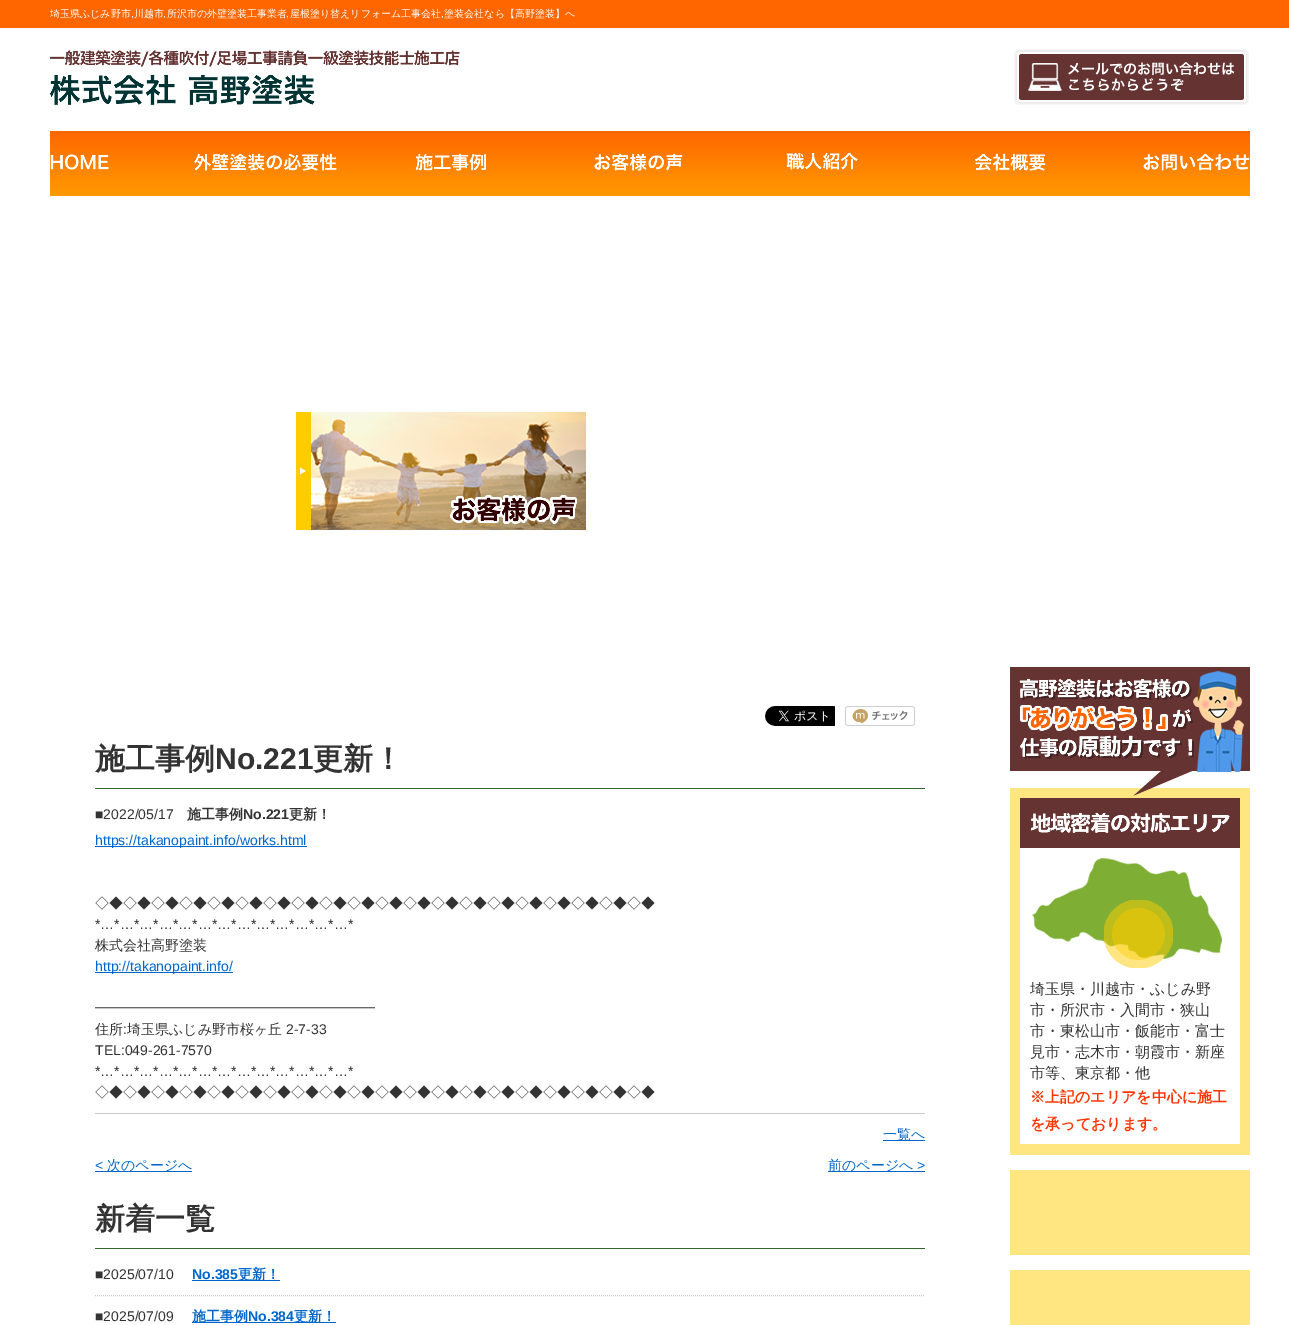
%!PS-Adobe-3.0
%%BoundingBox: 0 0 1289 1325
%%LanguageLevel: 3
%%Pages: 1
%%EndComments
%%BeginProlog
/setink { 3 { 255 div 3 1 roll } repeat setrgbcolor } def
/usefont { [ exch dup neg 0 0 3 -1 roll 0 0 ] selectfont } def
/drawtext { setink usefont moveto show } def
/fillbox { setink rectfill } def
/drawimage { 5 dict begin { /h /w /y /x /name } { exch def } forall
  gsave x y translate w h scale
  w h 8 [w 0 0 h 0 0] name (r) file false 3 colorimage grestore end } def
%%EndProlog
%%BeginSetup
<< /PageSize [1289 1325] >> setpagedevice
%%EndSetup
%%Page: 1 1
0 1325 translate 1 -1 scale
4 setmiterlimit
0 0 1289 1325 255 255 255 fillbox
0 0 1289 28 255 102 0 fillbox
(埼玉県ふじみ野市 川越市 所沢市の外壁塗装工事業者 屋根塗り替えリフォーム工事会社 塗装会社なら【高野塗装】へ) 50 17 /WenQuanYiZenHei-Medium 10 255 255 255 drawtext
(,) 131 17 /LiberationSans-Regular 10 255 255 255 drawtext
(,) 163 17 /LiberationSans-Regular 10 255 255 255 drawtext
(,) 286 17 /LiberationSans-Regular 10 255 255 255 drawtext
(,) 441 17 /LiberationSans-Regular 10 255 255 255 drawtext
(assets/img1.rgb) 50 50 410 55 drawimage
(assets/img2.rgb) 1014 49 235 56 drawimage
(assets/img3.rgb) 50 131 107 65 drawimage
(assets/img4.rgb) 157 131 222 65 drawimage
(assets/img5.rgb) 379 131 161 65 drawimage
(assets/img6.rgb) 540 131 188 65 drawimage
(assets/img7.rgb) 728 131 188 65 drawimage
(assets/img8.rgb) 916 131 188 65 drawimage
(assets/img9.rgb) 1104 131 146 65 drawimage
(assets/img10.rgb) 296 412 290 118 drawimage
(assets/img11.rgb) 765 706 70 20 drawimage
(assets/img12.rgb) 845 706 70 20 drawimage
95 788 830 1 49 101 43 fillbox
(施工事例) 95 769 /WenQuanYiZenHei-Bold 30 51 51 51 drawtext
(No.221) 215 769 /LiberationSans-Bold 30 51 51 51 drawtext
(更新！) 313 769 /WenQuanYiZenHei-Bold 30 51 51 51 drawtext
(■2022/05/17) 95 819 /LiberationSans-Regular 14 51 51 51 drawtext
(施工事例) 187 819 /WenQuanYiZenHei-Bold 14 51 51 51 drawtext
(No.221) 243 819 /LiberationSans-Bold 14 51 51 51 drawtext
(更新！) 289 819 /WenQuanYiZenHei-Bold 14 51 51 51 drawtext
95 846 212 1 0 102 204 fillbox
(https://takanopaint.info/works.html) 95 845 /LiberationSans-Regular 14 0 102 204 drawtext
(◇◆◇◆◇◆◇◆◇◆◇◆◇◆◇◆◇◆◇◆◇◆◇◆◇◆◇◆◇◆◇◆◇◆◇◆◇◆◇◆) 95 908 /WenQuanYiZenHei-Medium 14 51 51 51 drawtext
(*…*…*…*…*…*…*…*…*…*…*…*…*…*) 95 929 /LiberationSans-Regular 14 51 51 51 drawtext
(株式会社高野塗装) 95 950 /WenQuanYiZenHei-Medium 14 51 51 51 drawtext
95 972 138 1 0 102 204 fillbox
(http://takanopaint.info/) 95 971 /LiberationSans-Regular 14 0 102 204 drawtext
(━━━━━━━━━━━━━━━━━━━━) 95 1013 /WenQuanYiZenHei-Medium 14 51 51 51 drawtext
(住所) 95 1034 /WenQuanYiZenHei-Medium 14 51 51 51 drawtext
(:) 123 1034 /LiberationSans-Regular 14 51 51 51 drawtext
(埼玉県ふじみ野市桜ヶ丘) 127 1034 /WenQuanYiZenHei-Medium 14 51 51 51 drawtext
(2-7-33) 286 1034 /LiberationSans-Regular 14 51 51 51 drawtext
(TEL:049-261-7570) 95 1055 /LiberationSans-Regular 14 51 51 51 drawtext
(*…*…*…*…*…*…*…*…*…*…*…*…*…*) 95 1076 /LiberationSans-Regular 14 51 51 51 drawtext
(◇◆◇◆◇◆◇◆◇◆◇◆◇◆◇◆◇◆◇◆◇◆◇◆◇◆◇◆◇◆◇◆◇◆◇◆◇◆◇◆) 95 1097 /WenQuanYiZenHei-Medium 14 51 51 51 drawtext
95 1113 830 1 204 204 204 fillbox
883 1140 42 1 0 102 204 fillbox
(一覧へ) 883 1139 /WenQuanYiZenHei-Medium 14 0 102 204 drawtext
(<) 95 1170 /LiberationSans-Regular 14 0 102 204 drawtext
95 1171 97 1 0 102 204 fillbox
(次のページへ) 107 1170 /WenQuanYiZenHei-Medium 14 0 102 204 drawtext
828 1171 97 1 0 102 204 fillbox
(前のページへ) 828 1170 /WenQuanYiZenHei-Medium 14 0 102 204 drawtext
(>) 917 1170 /LiberationSans-Regular 14 0 102 204 drawtext
95 1248 830 1 49 101 43 fillbox
(新着一覧) 95 1229 /WenQuanYiZenHei-Bold 30 51 51 51 drawtext
204 204 204 setink
[1 1] 0 setdash
95 1295.5 moveto 925 1295.5 lineto stroke
(■2025/07/10) 95 1279 /LiberationSans-Regular 14 51 51 51 drawtext
(No.385) 192 1279 /LiberationSans-Bold 14 0 102 204 drawtext
192 1280 88 1 0 102 204 fillbox
(更新！) 238 1279 /WenQuanYiZenHei-Bold 14 0 102 204 drawtext
(■2025/07/09) 95 1321 /LiberationSans-Regular 14 51 51 51 drawtext
192 1322 144 1 0 102 204 fillbox
(施工事例) 192 1321 /WenQuanYiZenHei-Bold 14 0 102 204 drawtext
(No.384) 248 1321 /LiberationSans-Bold 14 0 102 204 drawtext
(更新！) 294 1321 /WenQuanYiZenHei-Bold 14 0 102 204 drawtext
(assets/img13.rgb) 1010 667 240 488 drawimage
(埼玉県・川越市・ふじみ野) 1030 994 /WenQuanYiZenHei-Medium 15 51 51 51 drawtext
(市・所沢市・入間市・狭山) 1030 1015 /WenQuanYiZenHei-Medium 15 51 51 51 drawtext
(市・東松山市・飯能市・富士) 1030 1036 /WenQuanYiZenHei-Medium 15 51 51 51 drawtext
(見市・志木市・朝霞市・新座) 1030 1057 /WenQuanYiZenHei-Medium 15 51 51 51 drawtext
(市等、東京都・他) 1030 1078 /WenQuanYiZenHei-Medium 15 51 51 51 drawtext
(※上記のエリアを中心に施工) 1030 1102 /WenQuanYiZenHei-Bold 15 255 51 0 drawtext
(を承っております。) 1030 1129 /WenQuanYiZenHei-Bold 15 255 51 0 drawtext
1010 1170 240 85 255 230 128 fillbox
1010 1270 240 55 255 230 128 fillbox
showpage
%%EOF
